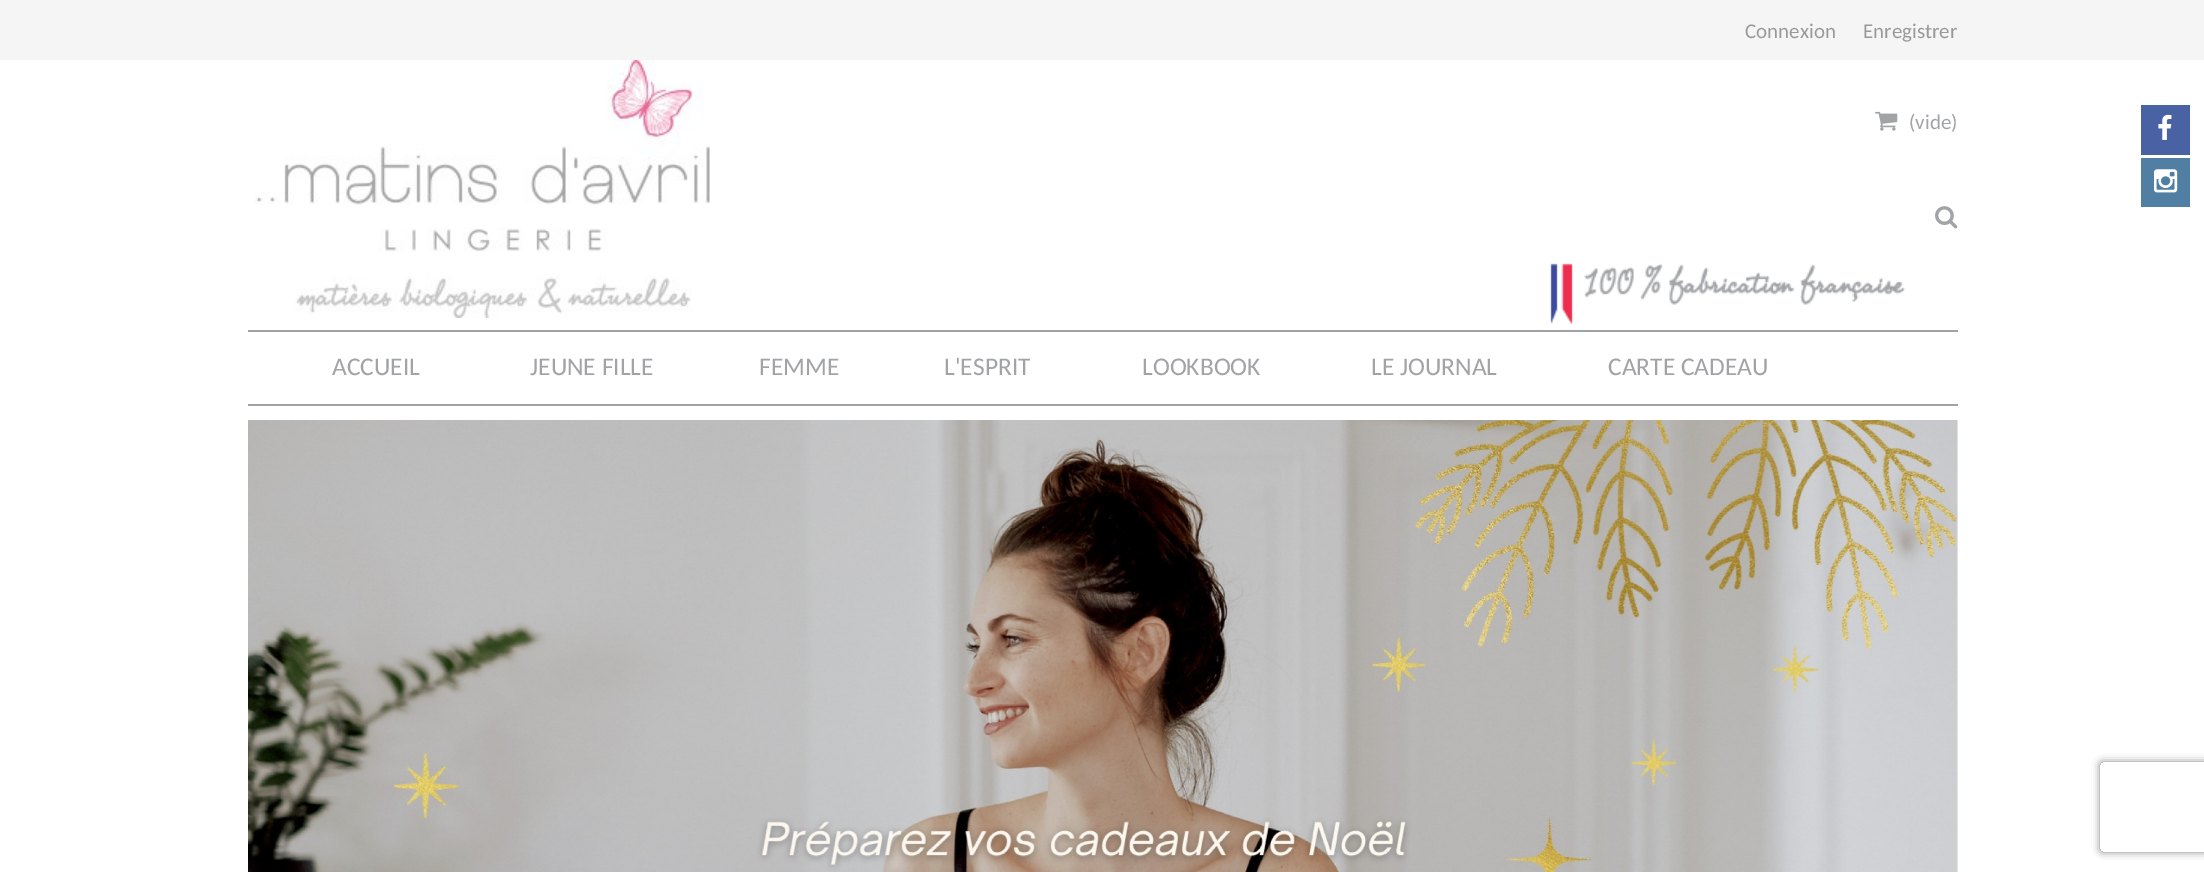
%!PS-Adobe-3.0
%%BoundingBox: 0 0 2204 872
%%LanguageLevel: 3
%%Pages: 1
%%EndComments
%%BeginProlog
/setink { 3 { 255 div 3 1 roll } repeat setrgbcolor } def
/usefont { [ exch dup neg 0 0 3 -1 roll 0 0 ] selectfont } def
/drawtext { setink usefont moveto show } def
/fillbox { setink rectfill } def
/setalpha { dup .setfillconstantalpha .setstrokeconstantalpha } def
/rrect { 5 dict begin { /r /h /w /y /x } { exch def } forall
  x r add y moveto x w add y 2 copy h add r arct x w add y h add x 1 index r arct
  x y h add x y r arct x y 2 copy exch w add exch r arct closepath end } def
/softshadow { 12 dict begin { /a /b /q /h /w /y /x } { exch def } forall gsave /was 0 def
  9 -2 -9 { dup b mul 4 div /e exch def 1 sub .425 mul 2.718 exch exp 1 add a .99 .min exch div /now exch def
    1 1 now sub 1 was sub div sub setalpha /was now def
    w h .min e 2 mul add 0 gt { x e sub y e sub w e 2 mul add h e 2 mul add
      q e add b .6 mul add w h .min 2 div e add .min 0 .max rrect fill } if } for grestore end } def
/drawimage { 5 dict begin { /h /w /y /x /name } { exch def } forall
  gsave x y translate w h scale
  w h 8 [w 0 0 h 0 0] name (r) file false 3 colorimage grestore end } def
%%EndProlog
%%BeginSetup
<< /PageSize [2204 872] /PageUsesTransparency true >> setpagedevice
%%EndSetup
%%Page: 1 1
0 .pushpdf14devicefilter
0 872 translate 1 -1 scale
4 setmiterlimit
0 0 2204 872 255 255 255 fillbox
0 0 2204 60 245 245 245 fillbox
(Connexion) 1745 38 /Carlito-Regular 21 153 153 153 drawtext
(Enregistrer) 1863 38 /Carlito-Regular 21 153 153 153 drawtext
(assets/img1.rgb) 254 60 456 258 drawimage
(assets/img2.rgb) 1875 111 23 20 drawimage
(\(vide\)) 1909 129 /Carlito-Regular 21 161 163 166 drawtext
(assets/img3.rgb) 1935 206 23 23 drawimage
(assets/img4.rgb) 1550 263 355 61 drawimage
248 330 1710 2 160 162 165 fillbox
(ACCUEIL) 332 375 /Carlito-Regular 25.5 161 163 166 drawtext
(JEUNE FILLE) 530 375 /Carlito-Regular 25.5 161 163 166 drawtext
(FEMME) 759 375 /Carlito-Regular 25.5 161 163 166 drawtext
(L'ESPRIT) 944 375 /Carlito-Regular 25.5 161 163 166 drawtext
(LOOKBOOK) 1142 375 /Carlito-Regular 25.5 161 163 166 drawtext
(LE JOURNAL) 1371 375 /Carlito-Regular 25.5 161 163 166 drawtext
(CARTE CADEAU) 1608 375 /Carlito-Regular 25.5 161 163 166 drawtext
248 404 1710 2 160 162 165 fillbox
(assets/img5.rgb) 248 420 1710 452 drawimage
gsave
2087 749 moveto 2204 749 lineto 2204 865 lineto 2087 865 lineto closepath 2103 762 moveto 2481 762 lineto 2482.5 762 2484 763.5 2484 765 curveto 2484 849 lineto 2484 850.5 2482.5 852 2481 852 curveto 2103 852 lineto 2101.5 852 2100 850.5 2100 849 curveto 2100 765 lineto 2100 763.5 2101.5 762 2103 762 curveto closepath eoclip newpath
128 128 128 setink
2100 762 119 90 3 4 1 softshadow
grestore
2141 105 49 50 72 98 163 fillbox
(assets/img6.rgb) 2158 114 14 26 drawimage
2141 158 49 49 81 127 164 fillbox
(assets/img7.rgb) 2154 169 24 24 drawimage
.poppdf14devicefilter showpage
%%EOF
